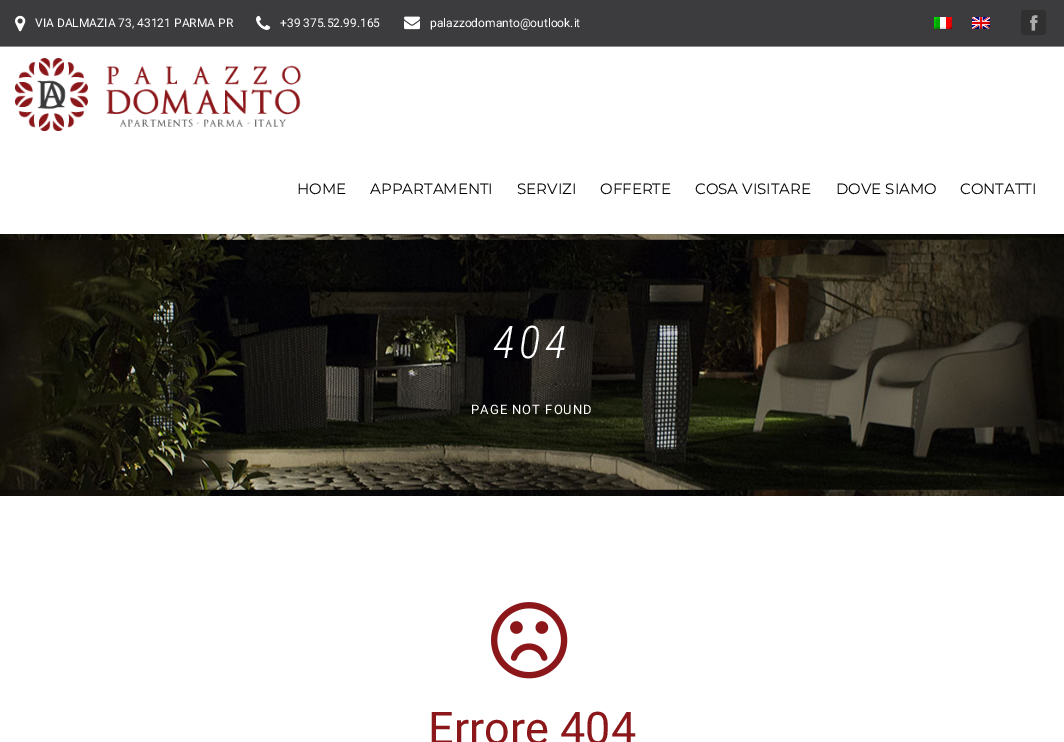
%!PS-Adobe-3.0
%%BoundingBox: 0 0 1064 742
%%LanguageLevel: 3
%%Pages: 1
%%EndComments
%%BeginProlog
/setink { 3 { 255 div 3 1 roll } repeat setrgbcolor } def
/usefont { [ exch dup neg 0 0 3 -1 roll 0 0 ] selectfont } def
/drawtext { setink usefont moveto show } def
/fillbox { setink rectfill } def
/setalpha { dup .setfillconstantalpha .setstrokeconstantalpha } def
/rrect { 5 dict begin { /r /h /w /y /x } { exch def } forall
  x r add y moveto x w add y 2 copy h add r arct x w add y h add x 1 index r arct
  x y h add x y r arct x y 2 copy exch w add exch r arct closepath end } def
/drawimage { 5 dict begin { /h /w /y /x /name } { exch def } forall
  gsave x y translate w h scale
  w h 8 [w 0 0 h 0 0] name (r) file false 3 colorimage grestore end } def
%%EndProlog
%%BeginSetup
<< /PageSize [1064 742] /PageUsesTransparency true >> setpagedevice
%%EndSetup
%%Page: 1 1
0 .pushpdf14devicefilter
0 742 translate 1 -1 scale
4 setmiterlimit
0 0 1064 742 255 255 255 fillbox
0 0 1064 46 60 60 62 fillbox
(assets/img1.rgb) 15 15 11 17 drawimage
(VIA DALMAZIA 73, 43121 PARMA PR) 35 27 /Roboto-Regular 12 255 255 255 drawtext
(assets/img2.rgb) 256 15 15 15 drawimage
(+39 375.52.99.165) 280 27 /Roboto-Regular 12 255 255 255 drawtext
(assets/img3.rgb) 404 16 16 14 drawimage
(palazzodomanto@outlook.it) 430 27 /Roboto-Regular 12 255 255 255 drawtext
(assets/img4.rgb) 934 17 18 12 drawimage
(assets/img5.rgb) 972 17 18 12 drawimage
82 82 82 setink
1021 10 25 25 3 rrect fill
0.6 setalpha
25 25 25 setink
1021 10 25 25 3 rrect fill
1 setalpha
(assets/img6.rgb) 1030 15 8 16 drawimage
0 46 1064 1 137 137 137 fillbox
(assets/img7.rgb) 15 58 286 73 drawimage
(HOME) 297 194 /Montserrat-Regular 15 0 0 0 drawtext
(APPARTAMENTI) 370 194 /Montserrat-Regular 15 0 0 0 drawtext
(SERVIZI) 517 194 /Montserrat-Regular 15 0 0 0 drawtext
(OFFERTE) 600 194 /Montserrat-Regular 15 0 0 0 drawtext
(COSA VISITARE) 695 194 /Montserrat-Regular 15 0 0 0 drawtext
(DOVE SIAMO) 836 194 /Montserrat-Regular 15 0 0 0 drawtext
(CONTATTI) 960 194 /Montserrat-Regular 15 0 0 0 drawtext
(assets/img8.rgb) 0 234 1064 262 drawimage
/RobotoCondensed-LightItalic 45 usefont
255 255 255 setink
493 358 moveto 5 0 (404) ashow
/Roboto-Regular 13 usefont
471 414 moveto 1 0 (PAGE NOT FOUND) ashow
(assets/img9.rgb) 491 602 77 77 drawimage
(Errore 404) 428 744 /Roboto-Regular 45 139 23 26 drawtext
.poppdf14devicefilter showpage
%%EOF
